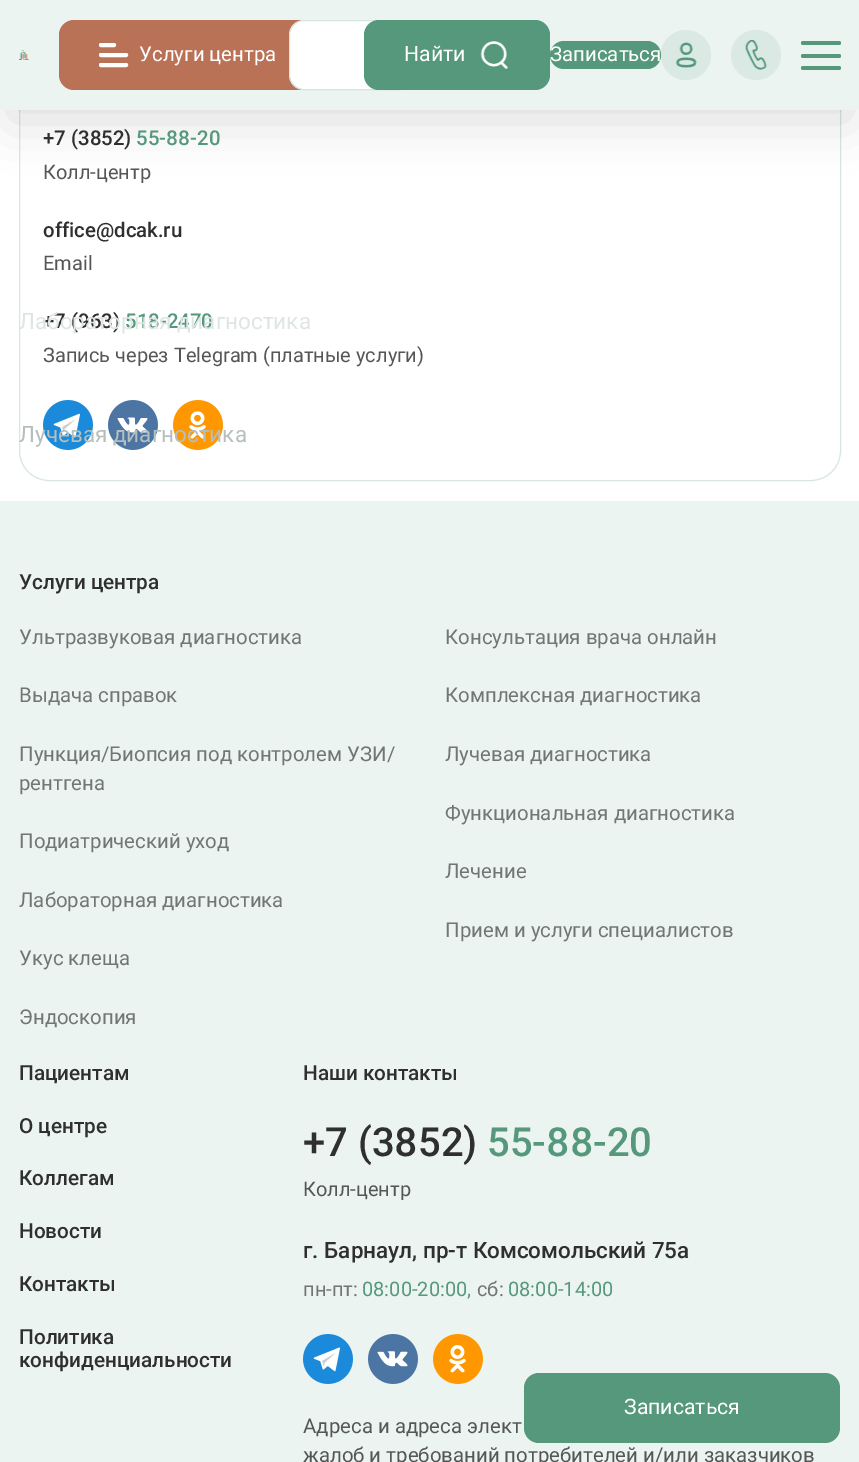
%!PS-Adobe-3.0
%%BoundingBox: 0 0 859 1462
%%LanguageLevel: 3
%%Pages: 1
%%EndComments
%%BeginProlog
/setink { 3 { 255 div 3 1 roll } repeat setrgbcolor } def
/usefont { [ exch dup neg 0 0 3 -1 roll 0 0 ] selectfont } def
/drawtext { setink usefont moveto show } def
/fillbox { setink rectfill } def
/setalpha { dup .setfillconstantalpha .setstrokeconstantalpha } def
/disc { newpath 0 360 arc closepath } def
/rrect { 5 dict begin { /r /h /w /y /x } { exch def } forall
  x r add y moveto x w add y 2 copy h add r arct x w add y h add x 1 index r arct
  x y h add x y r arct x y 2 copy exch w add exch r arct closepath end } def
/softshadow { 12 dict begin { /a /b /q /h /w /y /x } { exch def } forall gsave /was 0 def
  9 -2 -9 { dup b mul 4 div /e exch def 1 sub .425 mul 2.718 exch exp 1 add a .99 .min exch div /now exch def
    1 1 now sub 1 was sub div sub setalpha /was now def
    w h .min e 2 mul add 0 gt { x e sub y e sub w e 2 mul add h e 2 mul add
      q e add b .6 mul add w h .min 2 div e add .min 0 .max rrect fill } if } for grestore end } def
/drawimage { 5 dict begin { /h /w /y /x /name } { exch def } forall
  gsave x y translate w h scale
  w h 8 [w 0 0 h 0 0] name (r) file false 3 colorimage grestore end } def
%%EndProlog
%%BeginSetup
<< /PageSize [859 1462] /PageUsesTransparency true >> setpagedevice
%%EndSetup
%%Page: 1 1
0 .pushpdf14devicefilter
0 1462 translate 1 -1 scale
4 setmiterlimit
0 0 859 1462 255 255 255 fillbox
214 230 224 setink
19.5 -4.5 821 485 29.5 rrect stroke
36 32 33 setink
10 30 840 90 0 25 0.16 softshadow
0 0 859 110 236 244 242 fillbox
(assets/img1.rgb) 19 50 10 10 drawimage
186 114 87 setink
59 20 257 70 15 rrect fill
255 255 255 setink
99.5 43.5 16 3 1.5 rrect gsave fill grestore
stroke
99.5 53.5 28 3 1.5 rrect gsave fill grestore
stroke
99.5 63.5 28 3 1.5 rrect gsave fill grestore
stroke
(Услуги центра) 139 61 /Roboto-Regular 20.4 255 255 255 drawtext
289 20 125 70 15 rrect fill
0.24 setalpha
85 152 124 setink
289.5 20.5 124 69 14.5 rrect stroke
1 setalpha
364 20 186 70 15 rrect fill
(Найти) 404 61 /Roboto-Regular 21.25 255 255 255 drawtext
(assets/img2.rgb) 480 41 28 28 drawimage
85 152 124 setink
550 41 111 28 14 rrect fill
(Записаться) 550 61 /Roboto-Regular 20.4 255 255 255 drawtext
218 233 228 setink
686 55 25 disc fill
(assets/img3.rgb) 675 42 22 26 drawimage
756 55 25 disc fill
(assets/img4.rgb) 745 40 22 30 drawimage
85 152 124 setink
801 41 40 4 2 rrect fill
801 54 40 4 2 rrect fill
801 66 40 4 2 rrect fill
(+7 \(963\)) 43 328 /Roboto-Medium 20.4 47 47 47 drawtext
(518-2470) 125 328 /Roboto-Medium 20.4 85 152 124 drawtext
(Лабораторная диагностика) 19 329 /Roboto-Regular 22.5 222 229 226 drawtext
(assets/img5.rgb) 43 400 50 50 drawimage
(assets/img6.rgb) 108 400 50 50 drawimage
(assets/img7.rgb) 173 400 50 50 drawimage
(Лучевая диагностика) 19 442 /Roboto-Regular 22.5 181 191 189 drawtext
(+7 \(3852\)) 43 145 /Roboto-Medium 20.4 47 47 47 drawtext
(55-88-20) 136 145 /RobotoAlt-Medium 20.4 85 152 124 drawtext
(Колл-центр) 43 179 /Roboto-Regular 20 85 86 86 drawtext
(office@dcak.ru) 43 237 /Roboto-Medium 20.4 47 47 47 drawtext
(Email) 43 270 /Roboto-Regular 20 85 86 86 drawtext
(Запись через Telegram \(платные услуги\)) 43 362 /Roboto-Regular 20 85 86 86 drawtext
0 501 859 961 236 244 242 fillbox
(Услуги центра) 19 589 /Roboto-Medium 20.75 47 47 47 drawtext
(Ультразвуковая диагностика) 19 644 /Roboto-Regular 20.4 112 119 114 drawtext
(Выдача справок) 19 702 /Roboto-Regular 20.4 112 119 114 drawtext
(Пункция/Биопсия под контролем УЗИ/) 19 761 /Roboto-Regular 20.4 112 119 114 drawtext
(рентгена) 19 790 /Roboto-Regular 20.4 112 119 114 drawtext
(Подиатрический уход) 19 848 /Roboto-Regular 20.4 112 119 114 drawtext
(Лабораторная диагностика) 19 907 /Roboto-Regular 20.4 112 119 114 drawtext
(Укус клеща) 19 965 /Roboto-Regular 20.4 112 119 114 drawtext
(Эндоскопия) 19 1024 /Roboto-Regular 20.4 112 119 114 drawtext
(Консультация врача онлайн) 445 644 /Roboto-Regular 20.4 112 119 114 drawtext
(Комплексная диагностика) 445 702 /Roboto-Regular 20.4 112 119 114 drawtext
(Лучевая диагностика) 445 761 /Roboto-Regular 20.4 112 119 114 drawtext
(Функциональная диагностика) 445 820 /Roboto-Regular 20.4 112 119 114 drawtext
(Лечение) 445 878 /Roboto-Regular 20.4 112 119 114 drawtext
(Прием и услуги специалистов) 445 937 /Roboto-Regular 20.4 112 119 114 drawtext
(Пациентам) 19 1080 /Roboto-Medium 20.75 47 47 47 drawtext
(О центре) 19 1133 /Roboto-Medium 20.75 47 47 47 drawtext
(Коллегам) 19 1185 /Roboto-Medium 20.75 47 47 47 drawtext
(Новости) 19 1238 /Roboto-Medium 20.75 47 47 47 drawtext
(Контакты) 19 1291 /Roboto-Medium 20.75 47 47 47 drawtext
(Политика) 19 1344 /Roboto-Medium 20.75 47 47 47 drawtext
(конфиденциальности) 19 1367 /Roboto-Medium 20.75 47 47 47 drawtext
(Наши контакты) 303 1080 /Roboto-Medium 20.75 47 47 47 drawtext
(+7 \(3852\)) 303 1156 /RobotoAlt-Medium 40 47 47 47 drawtext
(55-88-20) 487 1156 /RobotoAlt-Medium 40 85 152 124 drawtext
(Колл-центр) 303 1196 /Roboto-Regular 20 85 86 86 drawtext
(г. Барнаул, пр-т Комсомольский 75а) 303 1258 /Roboto-Medium 22.5 47 47 47 drawtext
(пн-пт:) 303 1296 /Roboto-Regular 20 112 119 114 drawtext
(08:00-20:00,) 362 1296 /Roboto-Regular 20 85 152 124 drawtext
(сб:) 477 1296 /Roboto-Regular 20 112 119 114 drawtext
(08:00-14:00) 508 1296 /Roboto-Regular 20 85 152 124 drawtext
(assets/img8.rgb) 303 1334 50 50 drawimage
(assets/img9.rgb) 368 1334 50 50 drawimage
(assets/img10.rgb) 433 1334 50 50 drawimage
(Адреса и адреса элект) 303 1433 /Roboto-Regular 20.4 85 86 86 drawtext
(жалоб и требований потребителей и/или заказчиков) 303 1462 /Roboto-Regular 20.4 85 86 86 drawtext
85 152 124 setink
524 1373 316 70 15 rrect fill
(Записаться) 624 1414 /Roboto-Regular 21.25 255 255 255 drawtext
.poppdf14devicefilter showpage
%%EOF
